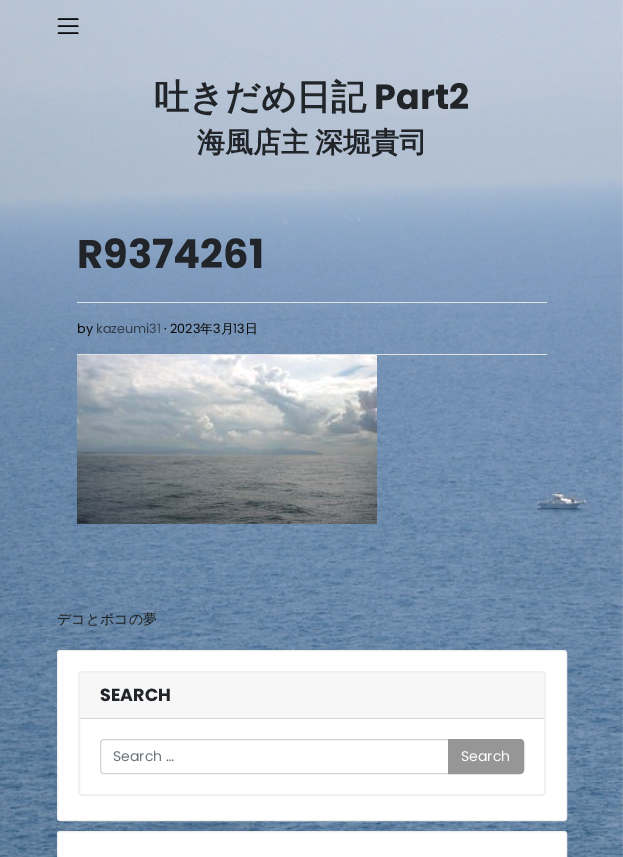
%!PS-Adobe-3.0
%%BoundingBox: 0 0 623 857
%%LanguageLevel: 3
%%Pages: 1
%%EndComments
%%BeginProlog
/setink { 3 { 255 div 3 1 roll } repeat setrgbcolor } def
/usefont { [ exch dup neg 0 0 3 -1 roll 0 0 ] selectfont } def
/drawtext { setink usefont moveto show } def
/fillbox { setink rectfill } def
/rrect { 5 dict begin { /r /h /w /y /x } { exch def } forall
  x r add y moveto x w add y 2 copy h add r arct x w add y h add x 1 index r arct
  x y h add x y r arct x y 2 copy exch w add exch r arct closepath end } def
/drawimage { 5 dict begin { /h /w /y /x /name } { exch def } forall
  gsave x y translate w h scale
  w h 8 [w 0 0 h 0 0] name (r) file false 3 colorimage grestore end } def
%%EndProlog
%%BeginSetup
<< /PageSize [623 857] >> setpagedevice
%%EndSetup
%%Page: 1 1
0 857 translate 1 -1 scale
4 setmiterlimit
0 0 623 857 255 255 255 fillbox
(assets/img1.rgb) 0 0 623 857 drawimage
(assets/img2.rgb) 57 18 22 16 drawimage
(吐きだめ日記) 154 109 /WenQuanYiZenHei-Bold 35 33 37 41 drawtext
(Part2) 374 109 /Poppins-Bold 35 33 37 41 drawtext
/WenQuanYiZenHei-Bold 28 usefont
197 152 moveto -2 0 32 (海風店主 深堀貴司) widthshow
(R9374261) 77 268 /Poppins-Bold 40 33 37 41 drawtext
77 302 470 1 222 226 230 fillbox
77 354 470 1 222 226 230 fillbox
(by) 77 333 /Poppins-Regular 12.75 10 10 10 drawtext
(kazeumi31) 96 333 /Poppins-Regular 12.75 50 62 76 drawtext
(· 2023) 164 333 /Poppins-Regular 12.75 10 10 10 drawtext
(年) 200 333 /WenQuanYiZenHei-Medium 12.75 10 10 10 drawtext
(3) 213 333 /Poppins-Regular 12.75 10 10 10 drawtext
(月) 221 333 /WenQuanYiZenHei-Medium 12.75 10 10 10 drawtext
(13) 233 333 /Poppins-Regular 12.75 10 10 10 drawtext
(日) 245 333 /WenQuanYiZenHei-Medium 12.75 10 10 10 drawtext
(assets/img3.rgb) 77 355 300 169 drawimage
(デコとボコの夢) 57 624 /WenQuanYiZenHei-Medium 14 31 31 31 drawtext
255 255 255 setink
57.5 650.5 509 170 2.5 rrect gsave fill grestore
238 238 238 setink
stroke
239 241 243 setink
2 setlinewidth
79 672 466 123 3 rrect stroke
247 247 247 setink
83 673 moveto 541 673 lineto 542.5 673 544 674.5 544 676 curveto 544 719 lineto 80 719 lineto 80 676 lineto 80 674.5 81.5 673 83 673 curveto closepath fill
80 718 464 1 216 216 216 fillbox
(SEARCH) 100 701 /Poppins-Bold 17.5 33 37 41 drawtext
206 212 218 setink
1 setlinewidth
104 739.5 moveto 448.5 739.5 lineto 448.5 773.5 lineto 104 773.5 lineto 102 773.5 100.5 772 100.5 770 curveto 100.5 743 lineto 100.5 741 102 739.5 104 739.5 curveto closepath stroke
(Search …) 113 761 /Poppins-Regular 14 108 117 125 drawtext
150 150 150 setink
448.5 739.5 moveto 520 739.5 lineto 522 739.5 523.5 741 523.5 743 curveto 523.5 770 lineto 523.5 772 522 773.5 520 773.5 curveto 448.5 773.5 lineto closepath gsave fill grestore
stroke
(Search) 461 761 /Poppins-Regular 14 255 255 255 drawtext
57.5 831.5 509 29 2.5 rrect gsave fill grestore
238 238 238 setink
stroke
showpage
%%EOF
